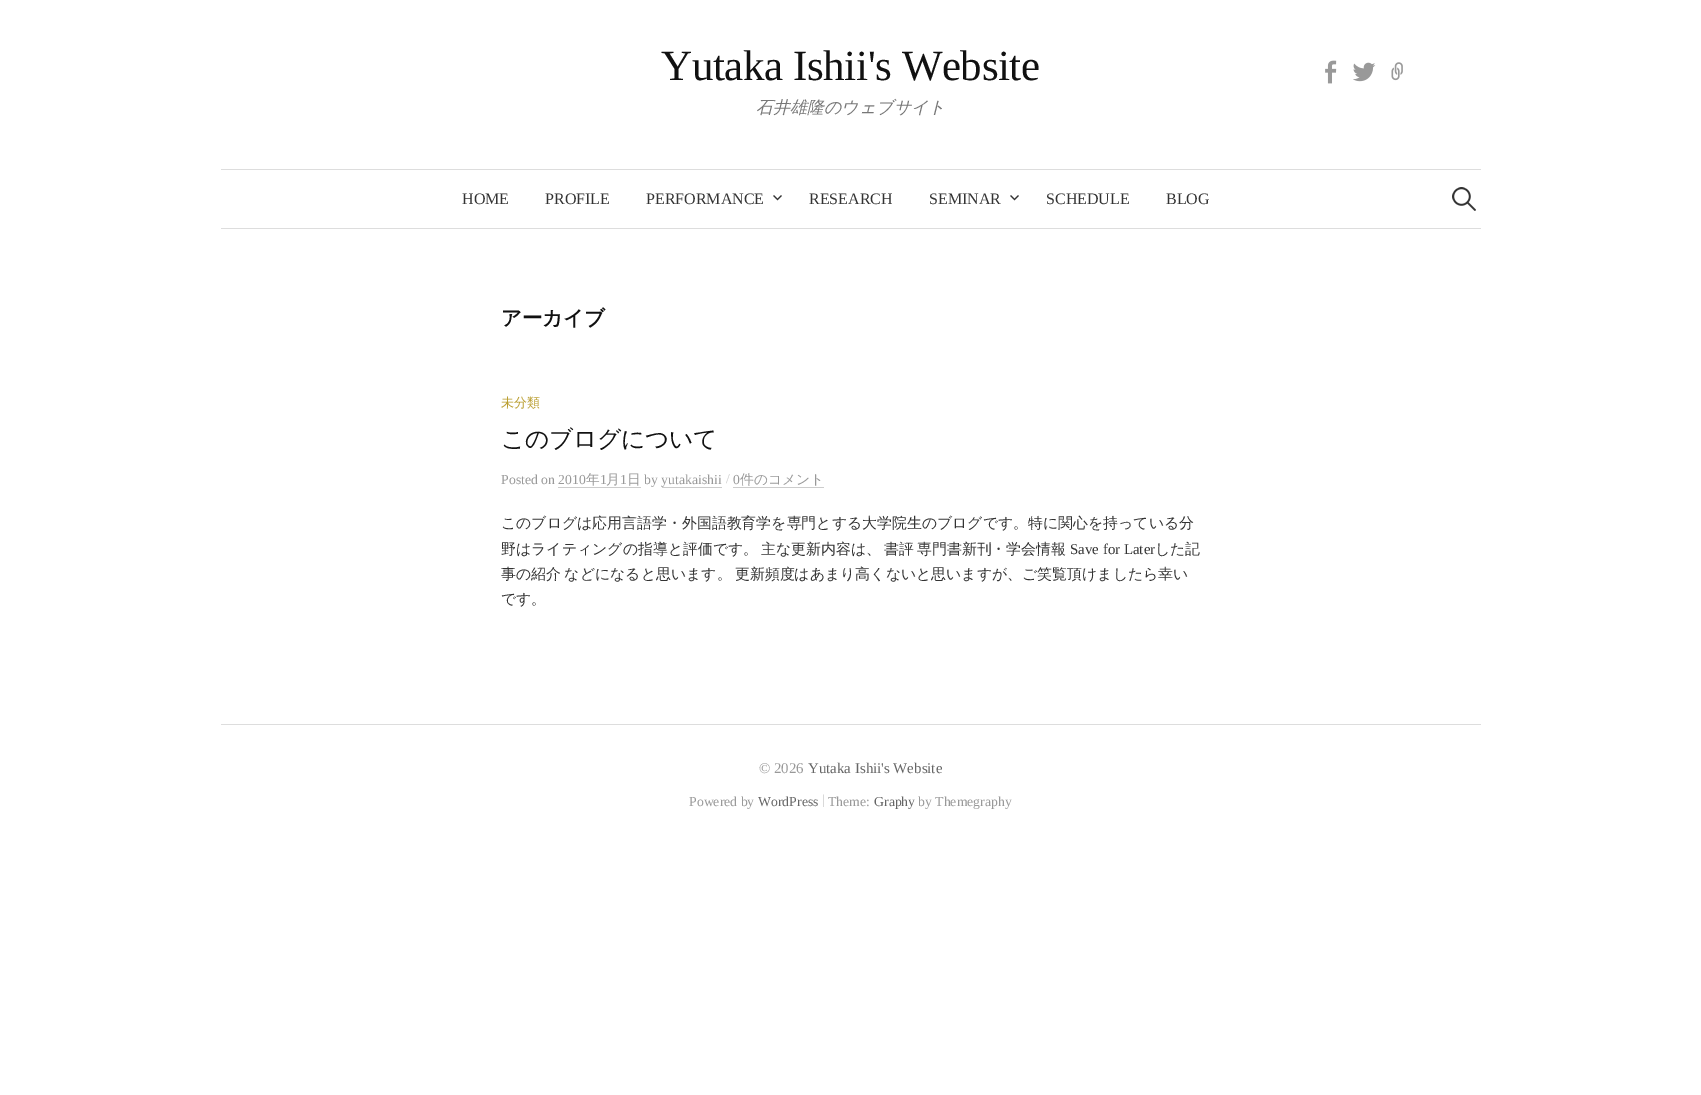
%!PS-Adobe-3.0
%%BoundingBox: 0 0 1701 1095
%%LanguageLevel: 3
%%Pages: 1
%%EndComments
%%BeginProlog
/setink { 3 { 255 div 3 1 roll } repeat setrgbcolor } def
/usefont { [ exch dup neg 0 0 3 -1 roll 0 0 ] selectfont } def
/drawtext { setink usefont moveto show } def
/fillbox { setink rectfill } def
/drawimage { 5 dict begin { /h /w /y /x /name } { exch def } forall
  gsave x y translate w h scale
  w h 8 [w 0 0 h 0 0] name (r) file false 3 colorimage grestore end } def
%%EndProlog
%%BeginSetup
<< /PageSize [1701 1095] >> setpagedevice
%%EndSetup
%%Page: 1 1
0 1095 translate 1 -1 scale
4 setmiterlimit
0 0 1701 1095 255 255 255 fillbox
/LiberationSerif-Regular 43 usefont
17 17 17 setink
661 80 moveto -0.4 0 (Yutaka Ishii's Website) ashow
(assets/img1.rgb) 1325 60 12 24 drawimage
(assets/img2.rgb) 1353 62 23 20 drawimage
(assets/img3.rgb) 1391 62 12 19 drawimage
(石井雄隆のウェブサイト) 756 113 /WenQuanYiZenHei-MediumItalic 17 119 119 119 drawtext
221 169 1260 1 221 221 221 fillbox
221 228 1260 1 221 221 221 fillbox
(HOME) 462 204 /LiberationSerif-Regular 16 51 51 51 drawtext
(PROFILE) 545 204 /LiberationSerif-Regular 16 51 51 51 drawtext
(PERFORMANCE) 646 204 /LiberationSerif-Regular 16 51 51 51 drawtext
(assets/img4.rgb) 773 195 9 6 drawimage
(RESEARCH) 809 204 /LiberationSerif-Regular 16 51 51 51 drawtext
(SEMINAR) 929 204 /LiberationSerif-Regular 16 51 51 51 drawtext
(assets/img4.rgb) 1010 195 9 6 drawimage
(SCHEDULE) 1046 204 /LiberationSerif-Regular 16 51 51 51 drawtext
(BLOG) 1166 204 /LiberationSerif-Regular 16 51 51 51 drawtext
(assets/img5.rgb) 1452 187 24 24 drawimage
(アーカイブ) 501 325 /WenQuanYiZenHei-Bold 20.5 17 17 17 drawtext
(未分類) 501 407 /WenQuanYiZenHei-Medium 13 186 158 48 drawtext
/WenQuanYiZenHei-Medium 23.75 usefont
17 17 17 setink
501 447 moveto -0.25 0 (このブログについて) ashow
(Posted on 2010) 501 484 /LiberationSerif-Regular 13.75 153 153 153 drawtext
(年) 586 484 /WenQuanYiZenHei-Medium 13.75 153 153 153 drawtext
(1) 600 484 /LiberationSerif-Regular 13.75 153 153 153 drawtext
(月) 606 484 /WenQuanYiZenHei-Medium 13.75 153 153 153 drawtext
558 487 83 1 204 204 204 fillbox
(1) 620 484 /LiberationSerif-Regular 13.75 153 153 153 drawtext
(日) 627 484 /WenQuanYiZenHei-Medium 13.75 153 153 153 drawtext
(by yutakaishii) 644 484 /LiberationSerif-Regular 13.75 153 153 153 drawtext
662 487 60 1 204 204 204 fillbox
(/) 726 483 /LiberationSerif-Regular 13.75 204 204 204 drawtext
(0) 733 484 /LiberationSerif-Regular 13.75 153 153 153 drawtext
733 487 91 1 204 204 204 fillbox
(件のコメント) 740 484 /WenQuanYiZenHei-Medium 13.75 153 153 153 drawtext
(このブログは応用言語学・外国語教育学を専門とする大学院生のブログです。特に関心を持っている分) 501 528 /WenQuanYiZenHei-Medium 14.9 51 51 51 drawtext
(野はライティングの指導と評価です。) 501 554 /WenQuanYiZenHei-Medium 14.9 51 51 51 drawtext
(主な更新内容は、) 761 554 /WenQuanYiZenHei-Medium 14.9 51 51 51 drawtext
(書評) 884 554 /WenQuanYiZenHei-Medium 14.9 51 51 51 drawtext
(専門書新刊・学会情報) 917 554 /WenQuanYiZenHei-Medium 14.9 51 51 51 drawtext
(Save for Later) 1070 554 /LiberationSerif-Regular 14.9 51 51 51 drawtext
(した記) 1155 554 /WenQuanYiZenHei-Medium 14.9 51 51 51 drawtext
501 579 moveto -1 0 32 (事の紹介 などになると思います。 更新頻度はあまり高くないと思いますが、ご笑覧頂けましたら幸い) widthshow
(です。) 501 604 /WenQuanYiZenHei-Medium 14.9 51 51 51 drawtext
221 724 1260 1 221 221 221 fillbox
(© 2026) 759 773 /LiberationSerif-Regular 14.9 153 153 153 drawtext
(Yutaka Ishii's Website) 808 773 /LiberationSerif-Regular 14.9 102 102 102 drawtext
(Powered by) 689 806 /LiberationSerif-Regular 13.75 153 153 153 drawtext
(WordPress) 758 806 /LiberationSerif-Regular 13.75 102 102 102 drawtext
(|) 822 804 /LiberationSerif-Regular 13.75 204 204 204 drawtext
(Theme:) 828 806 /LiberationSerif-Regular 13.75 153 153 153 drawtext
(Graphy) 874 806 /LiberationSerif-Regular 13.75 102 102 102 drawtext
(by Themegraphy) 918 806 /LiberationSerif-Regular 13.75 153 153 153 drawtext
showpage
%%EOF
